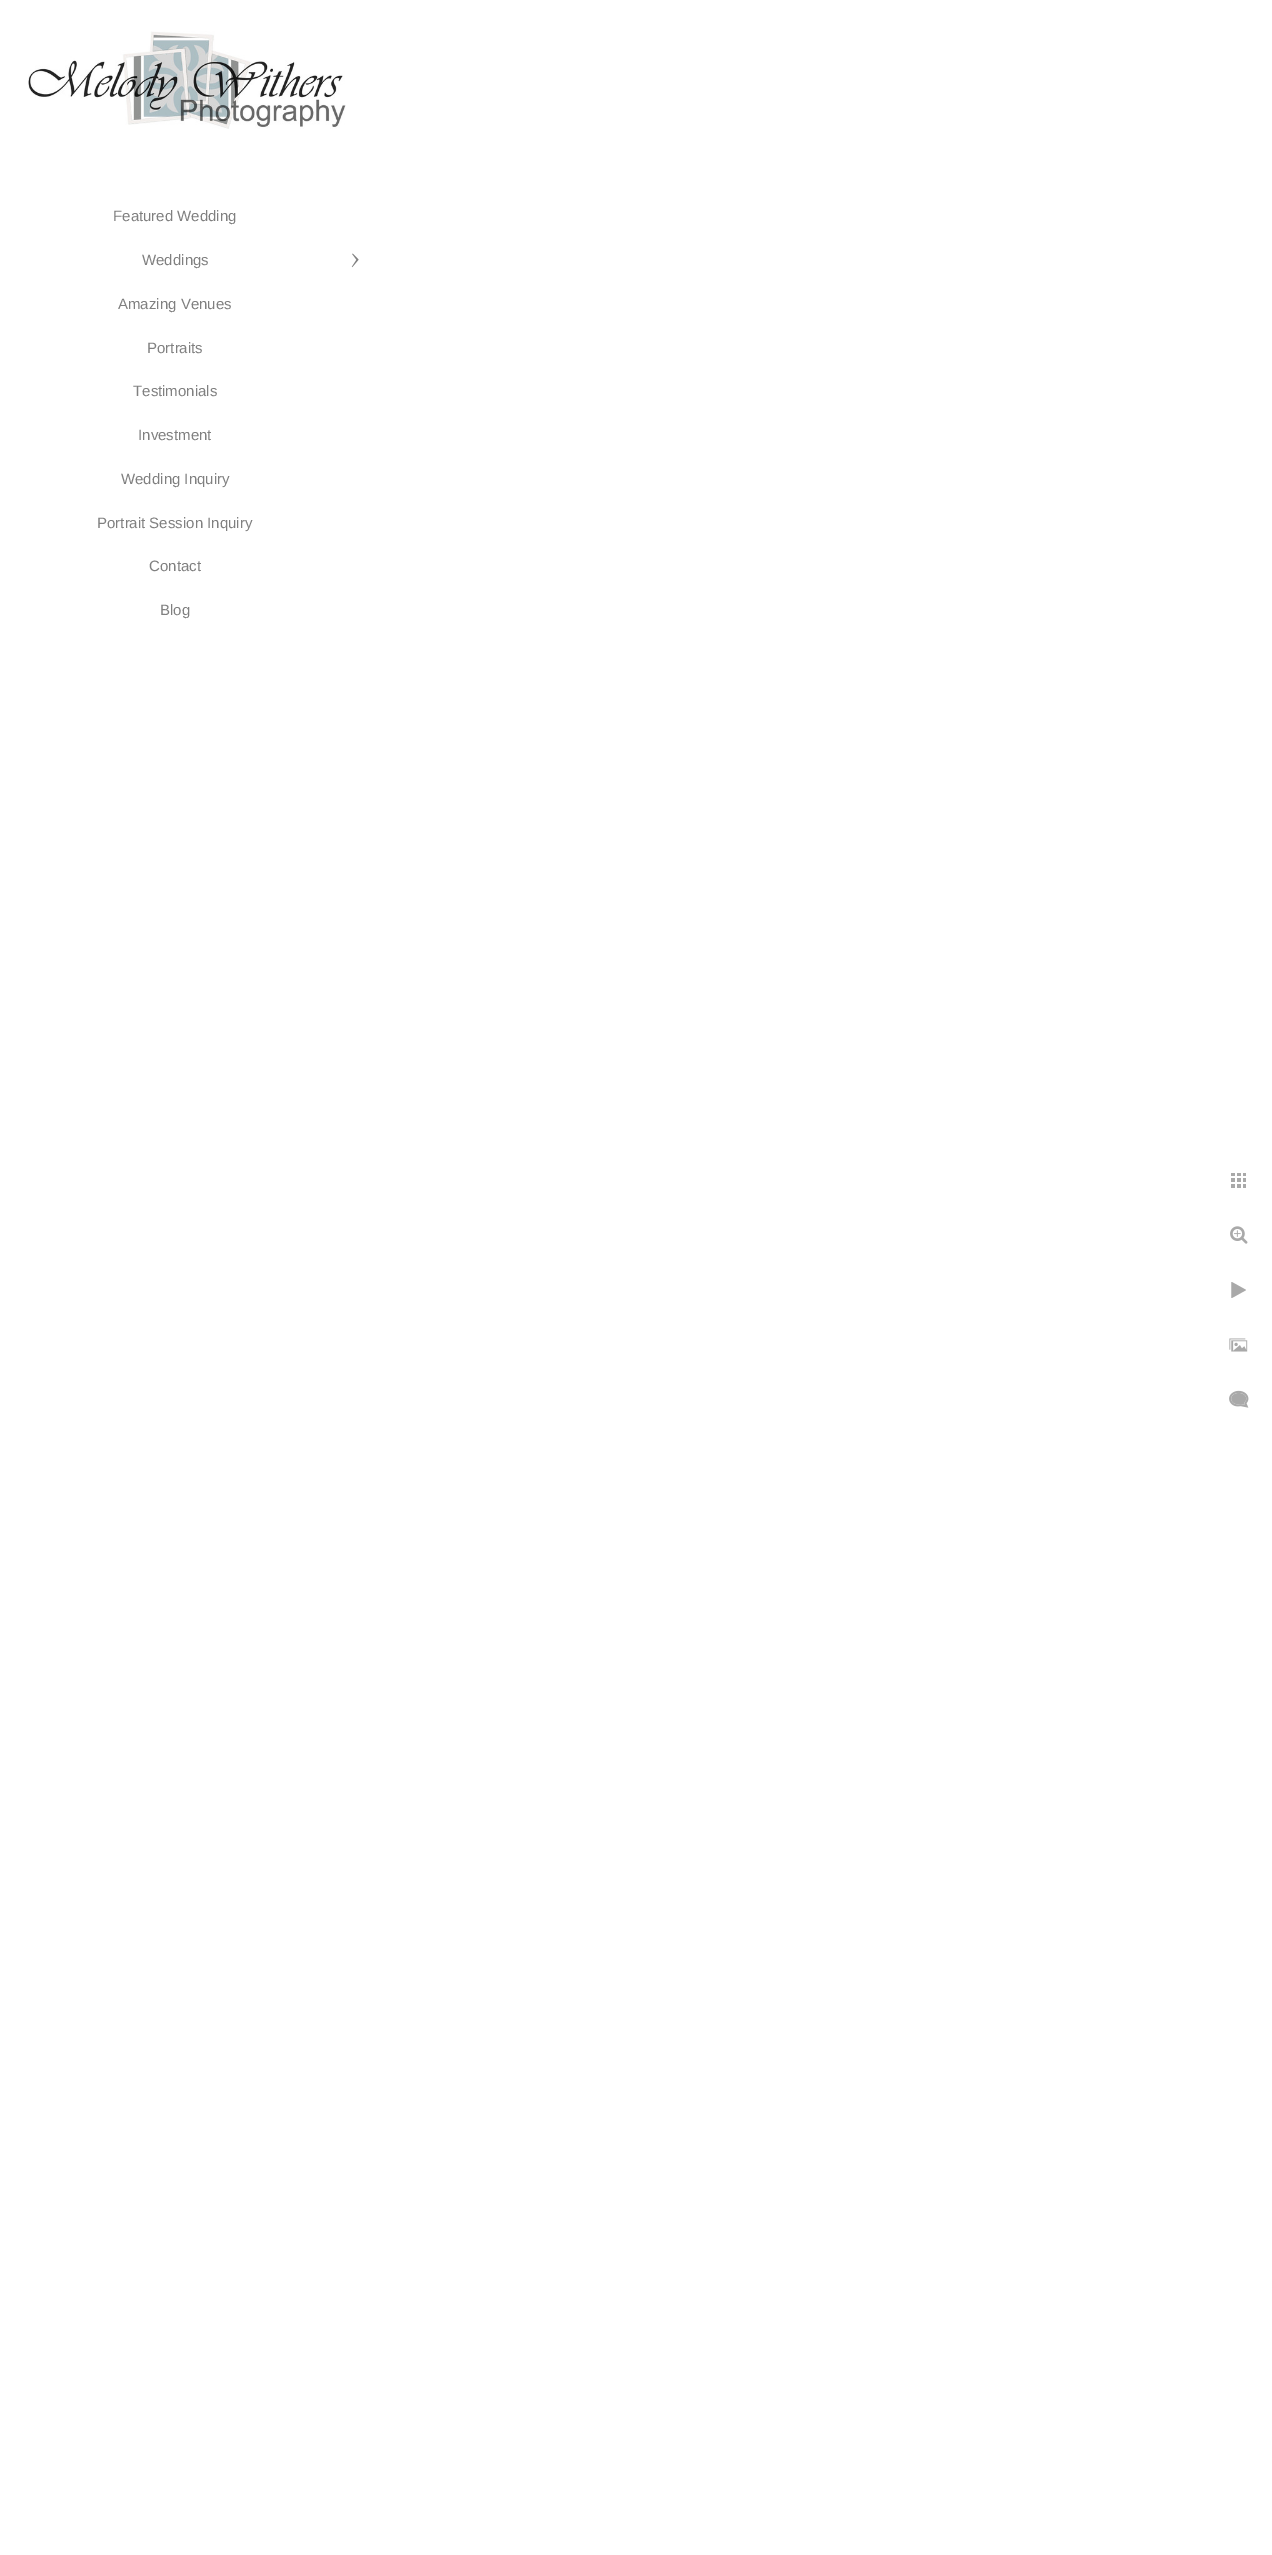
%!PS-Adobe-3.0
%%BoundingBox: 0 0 1272 2555
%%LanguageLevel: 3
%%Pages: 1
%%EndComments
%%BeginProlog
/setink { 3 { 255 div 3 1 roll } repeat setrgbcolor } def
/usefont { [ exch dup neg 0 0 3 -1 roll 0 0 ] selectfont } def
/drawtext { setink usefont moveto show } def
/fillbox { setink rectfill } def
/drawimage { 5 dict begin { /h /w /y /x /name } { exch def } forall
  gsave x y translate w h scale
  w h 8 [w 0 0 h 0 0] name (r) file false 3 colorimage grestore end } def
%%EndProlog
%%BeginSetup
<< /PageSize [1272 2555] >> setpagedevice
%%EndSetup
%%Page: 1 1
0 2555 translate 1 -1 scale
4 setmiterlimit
0 0 1272 2555 255 255 255 fillbox
(assets/img1.rgb) 28 31 318 98 drawimage
(Featured Wedding) 113 221 /LiberationSans-Regular 15 128 128 128 drawtext
(Weddings) 142 265 /LiberationSans-Regular 15 128 128 128 drawtext
(assets/img2.rgb) 351 253 8 15 drawimage
(Amazing Venues) 118 309 /LiberationSans-Regular 15 128 128 128 drawtext
(Portraits) 147 353 /LiberationSans-Regular 15 128 128 128 drawtext
(Testimonials) 133 396 /LiberationSans-Regular 15 128 128 128 drawtext
(Investment) 138 440 /LiberationSans-Regular 15 128 128 128 drawtext
(Wedding Inquiry) 121 484 /LiberationSans-Regular 15 128 128 128 drawtext
(Portrait Session Inquiry) 97 528 /LiberationSans-Regular 15 128 128 128 drawtext
(Contact) 149 571 /LiberationSans-Regular 15 128 128 128 drawtext
(Blog) 160 615 /LiberationSans-Regular 15 128 128 128 drawtext
(assets/img3.rgb) 1231 1173 15 15 drawimage
(assets/img4.rgb) 1230 1226 18 18 drawimage
(assets/img5.rgb) 1231 1282 15 16 drawimage
(assets/img6.rgb) 1229 1338 19 14 drawimage
(assets/img7.rgb) 1229 1390 20 18 drawimage
showpage
%%EOF
